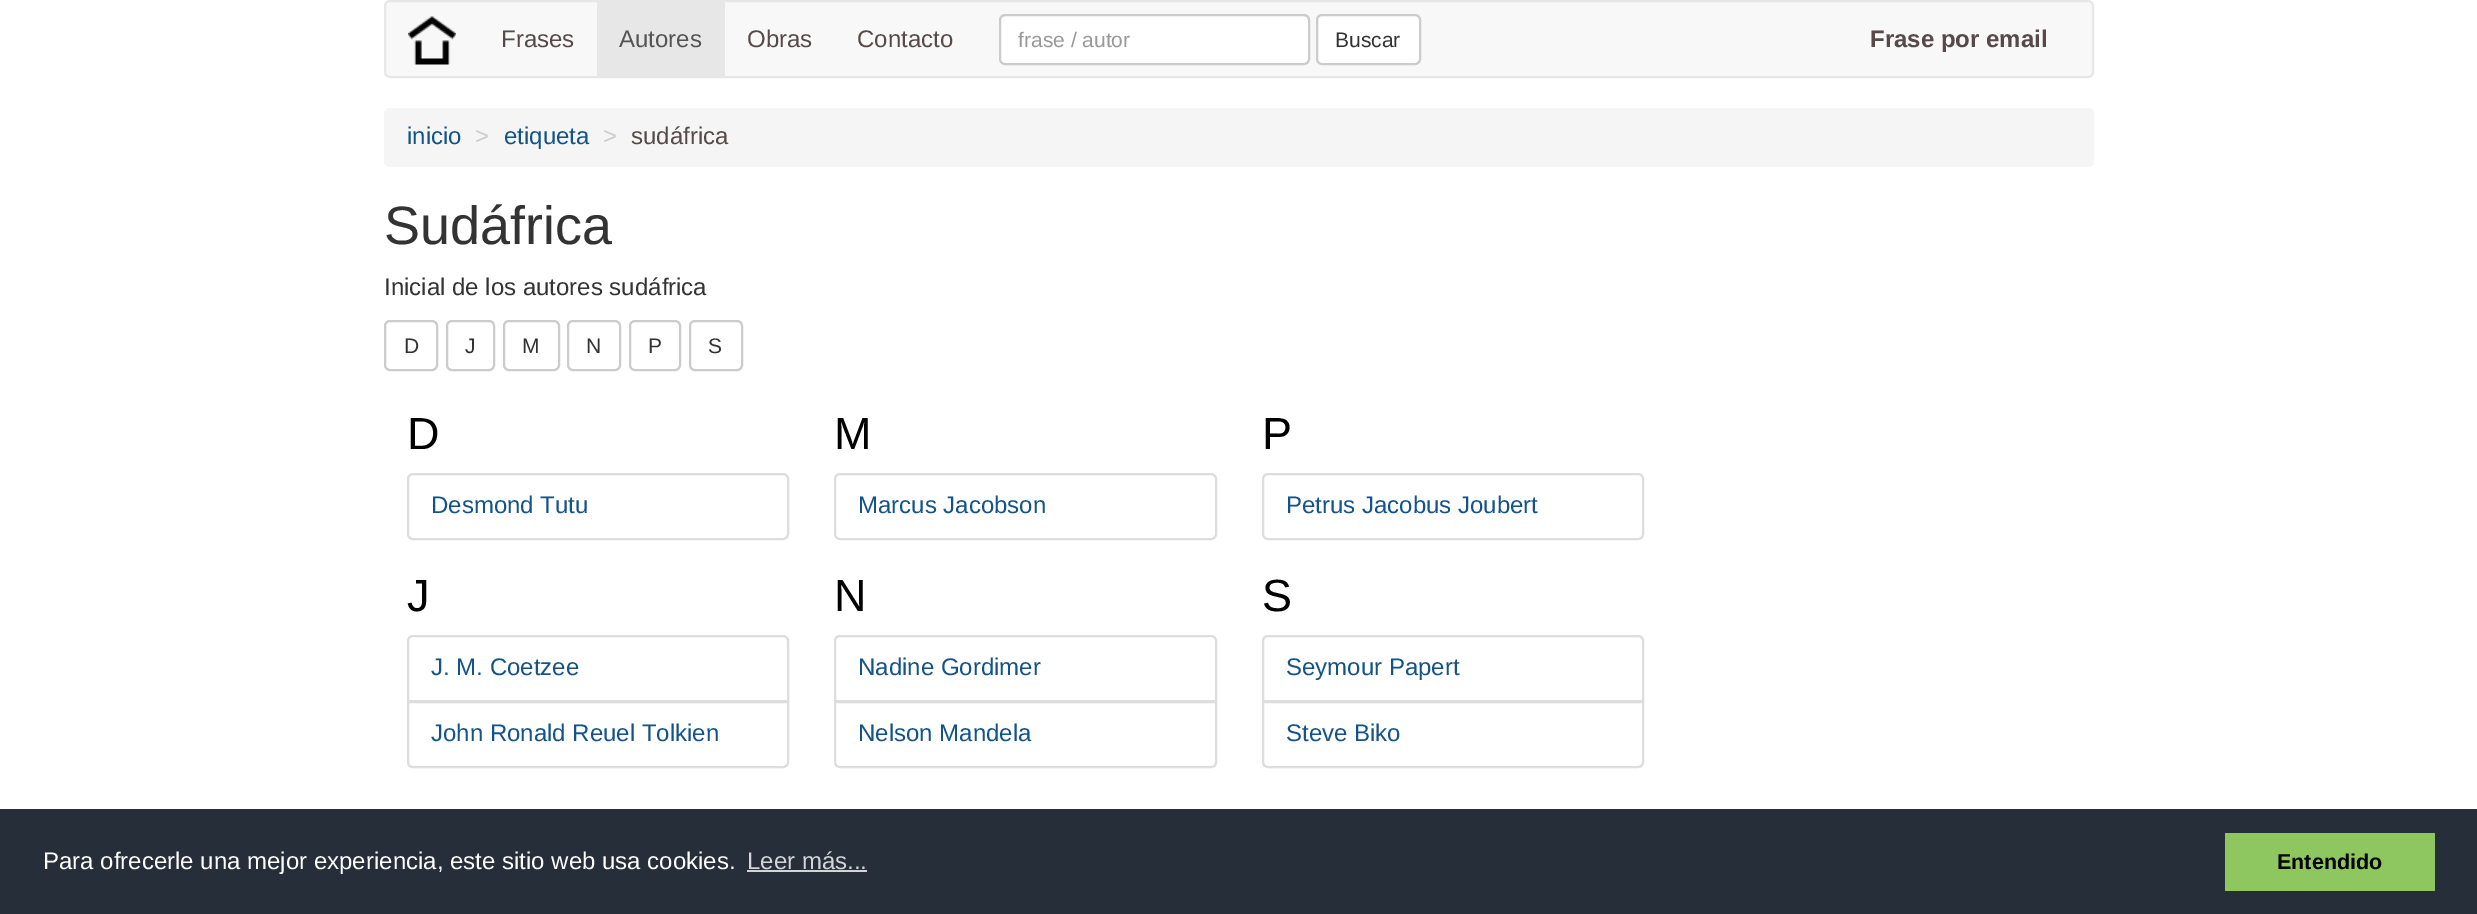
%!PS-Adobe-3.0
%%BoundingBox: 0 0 2477 914
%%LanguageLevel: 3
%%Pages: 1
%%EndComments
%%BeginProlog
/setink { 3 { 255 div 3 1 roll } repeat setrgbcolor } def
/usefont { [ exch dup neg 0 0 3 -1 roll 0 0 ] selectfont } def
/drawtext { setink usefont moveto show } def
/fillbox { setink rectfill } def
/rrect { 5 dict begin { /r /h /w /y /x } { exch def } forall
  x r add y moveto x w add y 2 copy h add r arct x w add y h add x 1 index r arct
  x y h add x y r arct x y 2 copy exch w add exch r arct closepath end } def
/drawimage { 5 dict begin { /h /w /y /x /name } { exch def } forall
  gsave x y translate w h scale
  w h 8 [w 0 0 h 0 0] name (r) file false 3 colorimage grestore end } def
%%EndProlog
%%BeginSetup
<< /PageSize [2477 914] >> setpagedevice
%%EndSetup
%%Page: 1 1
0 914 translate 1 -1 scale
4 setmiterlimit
0 0 2477 914 255 255 255 fillbox
248 248 248 setink
385 1 1708 76 5 rrect gsave fill grestore
231 231 231 setink
2 setlinewidth
stroke
(assets/img1.rgb) 408 16 48 49 drawimage
(Frases) 501 47 /LiberationSans-Regular 24 87 73 73 drawtext
597 2 128 74 231 231 231 fillbox
(Autores) 619 47 /LiberationSans-Regular 24 85 85 85 drawtext
(Obras) 747 47 /LiberationSans-Regular 24 87 73 73 drawtext
(Contacto) 857 47 /LiberationSans-Regular 24 87 73 73 drawtext
255 255 255 setink
999 14 311 51 6 rrect fill
236 236 236 setink
1005 16 moveto 1304 16 lineto 1306 16 1308 19 1308 21 curveto 1308 18 1306 15 1303 15 curveto 1005 15 lineto 1003 15 1002 17 1001 18 curveto 1002 17 1004 16 1005 16 curveto closepath fill
204 204 204 setink
1000 15 309 49 5 rrect stroke
(frase / autor) 1018 47 /LiberationSans-Regular 21 153 153 153 drawtext
255 255 255 setink
1317 15 103 49 5 rrect gsave fill grestore
204 204 204 setink
stroke
(Buscar) 1335 47 /LiberationSans-Regular 21 51 51 51 drawtext
(Frase por email) 1870 47 /LiberationSans-Bold 24 87 73 73 drawtext
245 245 245 setink
384 108 1710 59 6 rrect fill
(inicio) 407 144 /LiberationSans-Regular 24 19 83 137 drawtext
(>) 475 144 /LiberationSans-Regular 24 204 204 204 drawtext
(etiqueta) 504 144 /LiberationSans-Regular 24 19 83 137 drawtext
(>) 603 144 /LiberationSans-Regular 24 204 204 204 drawtext
(sudáfrica) 631 144 /LiberationSans-Regular 24 87 73 73 drawtext
(Sudáfrica) 384 244 /LiberationSans-Regular 54 51 51 51 drawtext
(Inicial de los autores sudáfrica) 384 295 /LiberationSans-Regular 24 51 51 51 drawtext
204 204 204 setink
385 321 52 49 5 rrect stroke
(D) 404 353 /LiberationSans-Regular 21 51 51 51 drawtext
204 204 204 setink
447 321 47 49 5 rrect stroke
(J) 465 353 /LiberationSans-Regular 21 51 51 51 drawtext
204 204 204 setink
504 321 55 49 5 rrect stroke
(M) 522 353 /LiberationSans-Regular 21 51 51 51 drawtext
204 204 204 setink
568 321 52 49 5 rrect stroke
(N) 586 353 /LiberationSans-Regular 21 51 51 51 drawtext
204 204 204 setink
630 321 50 49 5 rrect stroke
(P) 648 353 /LiberationSans-Regular 21 51 51 51 drawtext
204 204 204 setink
690 321 52 49 5 rrect stroke
(S) 708 353 /LiberationSans-Regular 21 51 51 51 drawtext
(D) 407 449 /LiberationSans-Regular 45 0 0 0 drawtext
221 221 221 setink
408 474 380 65 5 rrect stroke
(Desmond Tutu) 431 513 /LiberationSans-Regular 24 19 83 137 drawtext
(J) 407 611 /LiberationSans-Regular 45 0 0 0 drawtext
221 221 221 setink
413 636 moveto 783 636 lineto 786 636 788 638 788 641 curveto 788 701 lineto 408 701 lineto 408 641 lineto 408 638 410 636 413 636 curveto closepath stroke
(J. M. Coetzee) 431 675 /LiberationSans-Regular 24 19 83 137 drawtext
255 255 255 setink
408 702 moveto 788 702 lineto 788 762 lineto 788 765 786 767 783 767 curveto 413 767 lineto 410 767 408 765 408 762 curveto closepath gsave fill grestore
221 221 221 setink
stroke
(John Ronald Reuel Tolkien) 431 741 /LiberationSans-Regular 24 19 83 137 drawtext
(M) 834 449 /LiberationSans-Regular 45 0 0 0 drawtext
221 221 221 setink
835 474 381 65 5 rrect stroke
(Marcus Jacobson) 858 513 /LiberationSans-Regular 24 19 83 137 drawtext
(N) 834 611 /LiberationSans-Regular 45 0 0 0 drawtext
221 221 221 setink
840 636 moveto 1211 636 lineto 1214 636 1216 638 1216 641 curveto 1216 701 lineto 835 701 lineto 835 641 lineto 835 638 837 636 840 636 curveto closepath stroke
(Nadine Gordimer) 858 675 /LiberationSans-Regular 24 19 83 137 drawtext
255 255 255 setink
835 702 moveto 1216 702 lineto 1216 762 lineto 1216 765 1214 767 1211 767 curveto 840 767 lineto 837 767 835 765 835 762 curveto closepath gsave fill grestore
221 221 221 setink
stroke
(Nelson Mandela) 858 741 /LiberationSans-Regular 24 19 83 137 drawtext
(P) 1262 449 /LiberationSans-Regular 45 0 0 0 drawtext
221 221 221 setink
1263 474 380 65 5 rrect stroke
(Petrus Jacobus Joubert) 1286 513 /LiberationSans-Regular 24 19 83 137 drawtext
(S) 1262 611 /LiberationSans-Regular 45 0 0 0 drawtext
221 221 221 setink
1268 636 moveto 1638 636 lineto 1641 636 1643 638 1643 641 curveto 1643 701 lineto 1263 701 lineto 1263 641 lineto 1263 638 1265 636 1268 636 curveto closepath stroke
(Seymour Papert) 1286 675 /LiberationSans-Regular 24 19 83 137 drawtext
255 255 255 setink
1263 702 moveto 1643 702 lineto 1643 762 lineto 1643 765 1641 767 1638 767 curveto 1268 767 lineto 1265 767 1263 765 1263 762 curveto closepath gsave fill grestore
221 221 221 setink
stroke
(Steve Biko) 1286 741 /LiberationSans-Regular 24 19 83 137 drawtext
0 809 2477 105 37 46 57 fillbox
(Para ofrecerle una mejor experiencia, este sitio web usa cookies.) 43 869 /LiberationSans-Regular 24 255 255 255 drawtext
(Leer más...) 747 869 /LiberationSans-Regular 24 211 213 215 drawtext
747 870 120 2 211 213 215 fillbox
2225 833 210 58 142 199 96 fillbox
(Entendido) 2277 869 /LiberationSans-Bold 21.5 0 0 0 drawtext
showpage
%%EOF
